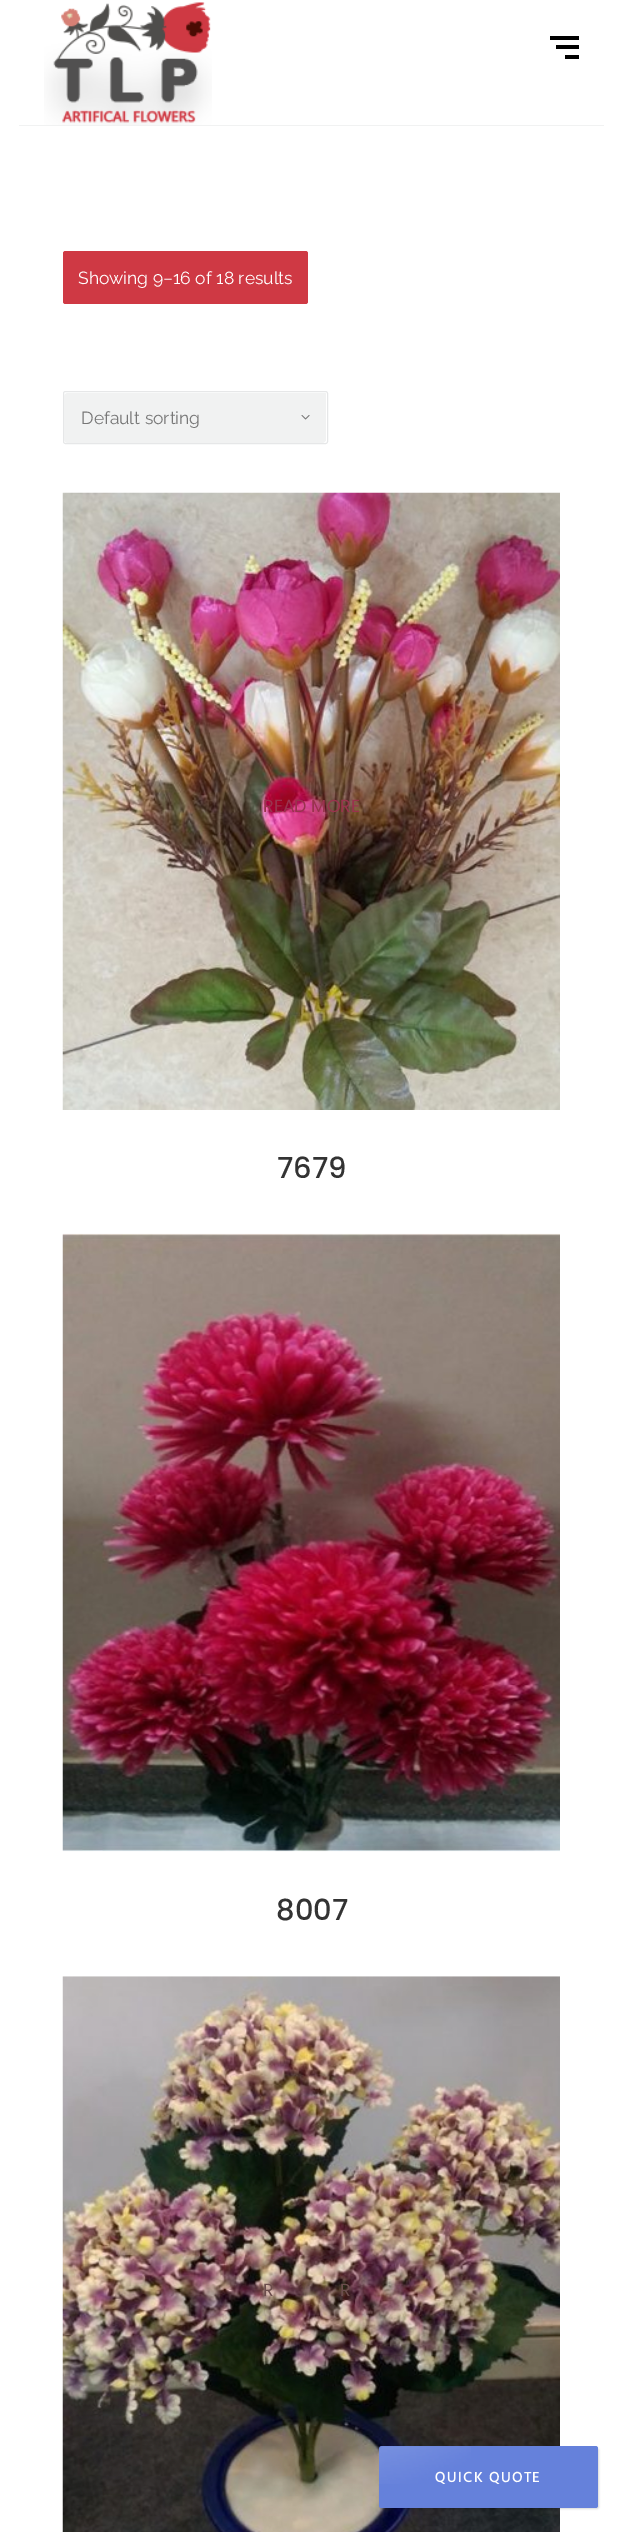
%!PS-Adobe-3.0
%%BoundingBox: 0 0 622 2532
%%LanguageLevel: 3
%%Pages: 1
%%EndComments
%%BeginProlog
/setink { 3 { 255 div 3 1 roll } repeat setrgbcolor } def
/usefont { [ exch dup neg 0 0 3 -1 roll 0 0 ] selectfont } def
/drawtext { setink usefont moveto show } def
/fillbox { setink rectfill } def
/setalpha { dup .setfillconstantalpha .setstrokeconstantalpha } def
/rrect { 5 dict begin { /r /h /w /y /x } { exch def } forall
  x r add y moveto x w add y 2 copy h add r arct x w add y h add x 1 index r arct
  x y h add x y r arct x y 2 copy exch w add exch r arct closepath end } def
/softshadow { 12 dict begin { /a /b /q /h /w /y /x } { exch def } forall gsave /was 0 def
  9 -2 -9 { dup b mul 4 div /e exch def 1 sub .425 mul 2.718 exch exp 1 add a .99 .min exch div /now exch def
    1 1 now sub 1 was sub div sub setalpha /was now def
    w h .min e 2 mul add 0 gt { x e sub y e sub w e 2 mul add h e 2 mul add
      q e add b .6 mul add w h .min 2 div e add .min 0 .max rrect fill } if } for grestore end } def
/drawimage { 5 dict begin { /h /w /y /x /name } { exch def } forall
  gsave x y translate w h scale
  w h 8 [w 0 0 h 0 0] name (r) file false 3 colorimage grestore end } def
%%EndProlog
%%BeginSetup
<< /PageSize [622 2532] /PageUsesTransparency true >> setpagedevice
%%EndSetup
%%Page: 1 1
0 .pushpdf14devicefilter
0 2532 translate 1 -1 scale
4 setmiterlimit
0 0 622 2532 255 255 255 fillbox
19 125 585 1 241 242 242 fillbox
(assets/img1.rgb) 44 2 168 123 drawimage
556 45 23 4 0 0 0 fillbox
550 36 29 4 0 0 0 fillbox
565 55 14 4 0 0 0 fillbox
207 57 68 setink
63 251 245 53 2.5 rrect fill
(Showing 9–16 of 18 results) 78 284 /Raleway-Regular 17.5 255 255 255 drawtext
230 231 232 setink
63.5 391.5 264 52 2 rrect stroke
241 242 242 setink
64 393 262 50 4 rrect fill
(Default sorting) 81 424 /Raleway-Regular 17.5 119 119 119 drawtext
241 242 242 setink
283 393 moveto 325 393 lineto 325.5 393 326 393.5 326 394 curveto 326 441 lineto 283 441 lineto closepath fill
(assets/img2.rgb) 301 415 9 5 drawimage
(assets/img3.rgb) 62 492 498 618 drawimage
(READ MORE) 263 812 /Poppins-Regular 17.5 153 51 77 drawtext
(7679) 277 1178 /Poppins-Medium 29 51 51 51 drawtext
(assets/img4.rgb) 62 1233 498 619 drawimage
(8007) 276 1920 /Poppins-Medium 29 51 51 51 drawtext
(assets/img5.rgb) 62 1976 498 556 drawimage
(R) 263 2296 /Poppins-Regular 17.5 108 78 77 drawtext
(R) 340 2296 /Poppins-Regular 17.5 108 78 77 drawtext
0 0 0 setink
380 2448 219 61 2.5 1 0.15 softshadow
101 129 219 setink
379 2446 219 62 2.5 rrect fill
/Hind-Medium 15 usefont
255 255 255 setink
435 2482 moveto 1.25 0 (QUICK QUOTE) ashow
(assets/img6.rgb) 378 2446 93 38 drawimage
.poppdf14devicefilter showpage
%%EOF
